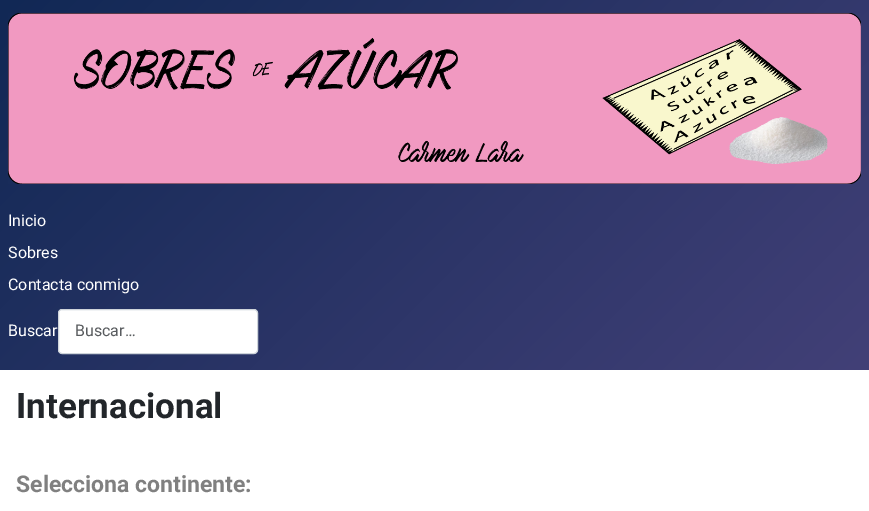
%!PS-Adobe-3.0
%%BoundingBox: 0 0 869 511
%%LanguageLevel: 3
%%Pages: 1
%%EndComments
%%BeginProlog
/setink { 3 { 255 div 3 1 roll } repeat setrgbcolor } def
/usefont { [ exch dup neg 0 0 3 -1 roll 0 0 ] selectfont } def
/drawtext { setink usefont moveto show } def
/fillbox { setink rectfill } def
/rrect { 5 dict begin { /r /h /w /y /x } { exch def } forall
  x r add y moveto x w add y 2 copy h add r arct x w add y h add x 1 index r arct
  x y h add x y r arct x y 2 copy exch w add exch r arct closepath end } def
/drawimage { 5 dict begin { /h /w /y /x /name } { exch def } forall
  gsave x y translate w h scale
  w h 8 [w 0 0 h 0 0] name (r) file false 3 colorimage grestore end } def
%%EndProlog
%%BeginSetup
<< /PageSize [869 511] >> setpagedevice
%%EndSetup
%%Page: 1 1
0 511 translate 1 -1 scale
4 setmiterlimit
0 0 869 511 255 255 255 fillbox
gsave 0 0 moveto 869 0 lineto 869 370 lineto 0 370 lineto closepath clip newpath
<< /ShadingType 2 /ColorSpace /DeviceRGB /Coords [125 -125 744 495] /Extend [true true] /Function << /FunctionType 2 /Domain [0 1] /C0 [0.067 0.157 0.333] /C1 [0.259 0.251 0.467] /N 1 >> >> shfill grestore
(assets/img1.rgb) 8 13 853 171 drawimage
(Inicio) 8 226 /Roboto-Regular 16 255 255 255 drawtext
(Sobres) 8 258 /Roboto-Regular 16 255 255 255 drawtext
(Contacta conmigo) 8 290 /Roboto-Regular 16 255 255 255 drawtext
(Buscar) 8 336 /Roboto-Regular 16 255 255 255 drawtext
58.5 309.5 199 44 3.5 rrect gsave fill grestore
206 212 218 setink
stroke
(Buscar…) 75 336 /Roboto-Regular 16 89 92 95 drawtext
(Internacional) 16 418 /Roboto-Bold 35 34 38 42 drawtext
(Selecciona continente:) 16 492 /Roboto-Bold 23 128 128 128 drawtext
showpage
%%EOF
